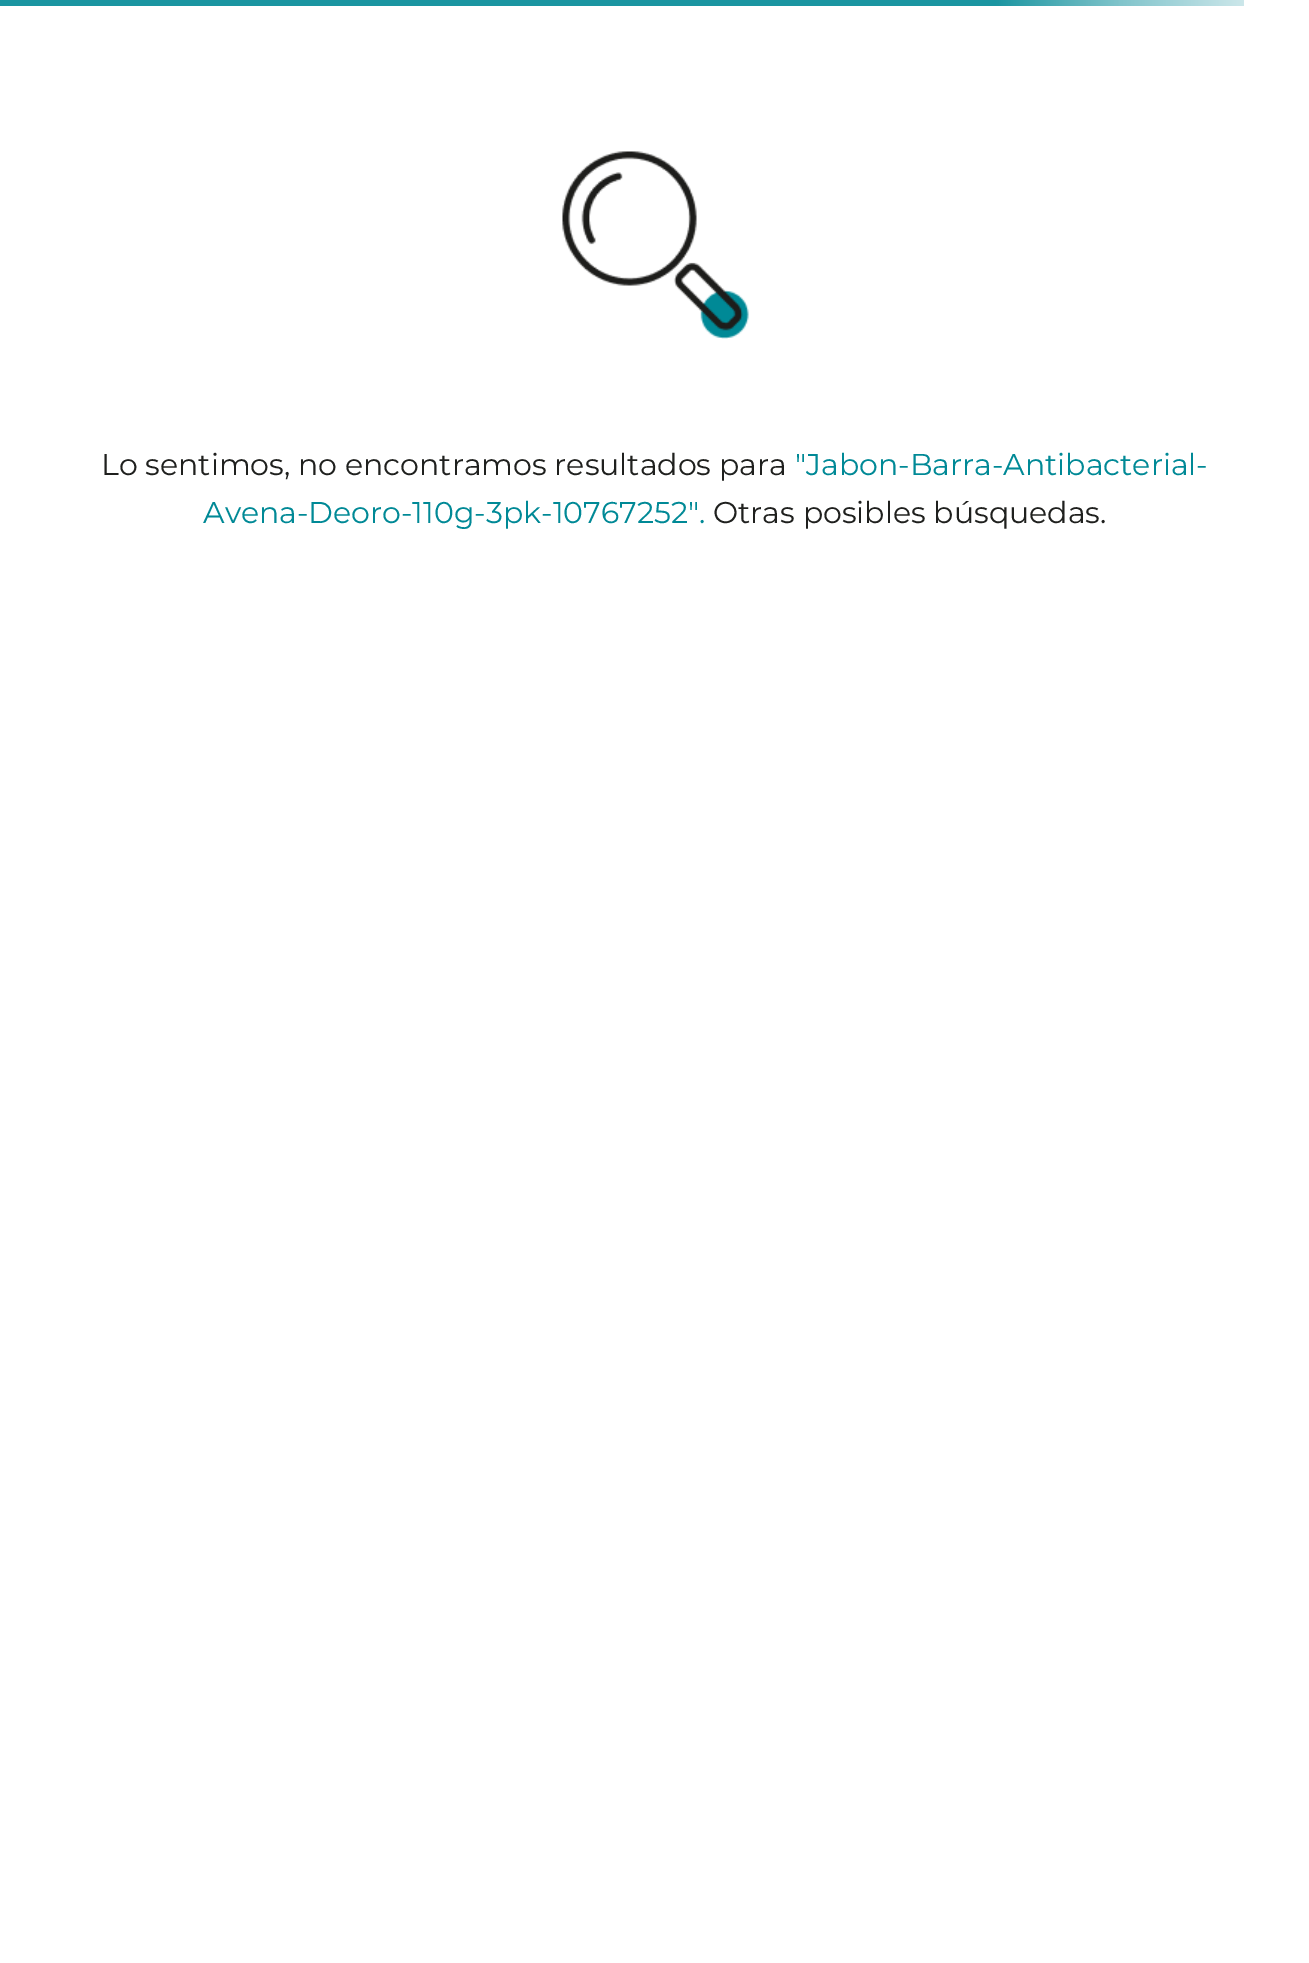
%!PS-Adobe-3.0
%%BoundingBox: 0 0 1309 1963
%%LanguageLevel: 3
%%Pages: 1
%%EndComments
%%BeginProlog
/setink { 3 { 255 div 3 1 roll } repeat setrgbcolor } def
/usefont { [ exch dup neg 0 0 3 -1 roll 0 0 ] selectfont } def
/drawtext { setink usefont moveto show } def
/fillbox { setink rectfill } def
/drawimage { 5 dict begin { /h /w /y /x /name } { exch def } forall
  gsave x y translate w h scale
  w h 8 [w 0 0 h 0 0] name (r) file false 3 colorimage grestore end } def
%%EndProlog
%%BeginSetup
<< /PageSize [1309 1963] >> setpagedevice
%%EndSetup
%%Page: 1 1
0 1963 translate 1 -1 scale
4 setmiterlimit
0 0 1309 1963 255 255 255 fillbox
gsave 0 0 moveto 1244 0 lineto 1244 6 lineto 0 6 lineto closepath clip newpath
<< /ShadingType 2 /ColorSpace /DeviceRGB /Coords [0 3 1244 3] /Extend [true true] /Function << /FunctionType 3 /Domain [0 1] /Functions [<< /FunctionType 2 /Domain [0 1] /C0 [0.102 0.584 0.631] /C1 [0.102 0.584 0.631] /N 1 >> << /FunctionType 2 /Domain [0 1] /C0 [0.102 0.584 0.631] /C1 [0.502 0.769 0.796] /N 1 >> << /FunctionType 2 /Domain [0 1] /C0 [0.502 0.769 0.796] /C1 [0.8 0.906 0.918] /N 1 >>] /Bounds [0.8 0.9] /Encode [0 1 0 1 0 1] >> >> shfill grestore
(assets/img1.rgb) 562 151 187 188 drawimage
(Lo sentimos, no encontramos resultados para) 101 475 /Montserrat-Regular 30 31 32 30 drawtext
("Jabon-Barra-Antibacterial-) 795 475 /Montserrat-Regular 30 0 137 150 drawtext
(Avena-Deoro-110g-3pk-10767252".) 203 523 /Montserrat-Regular 30 0 137 150 drawtext
(Otras posibles búsquedas.) 713 523 /Montserrat-Regular 30 31 32 30 drawtext
showpage
%%EOF
